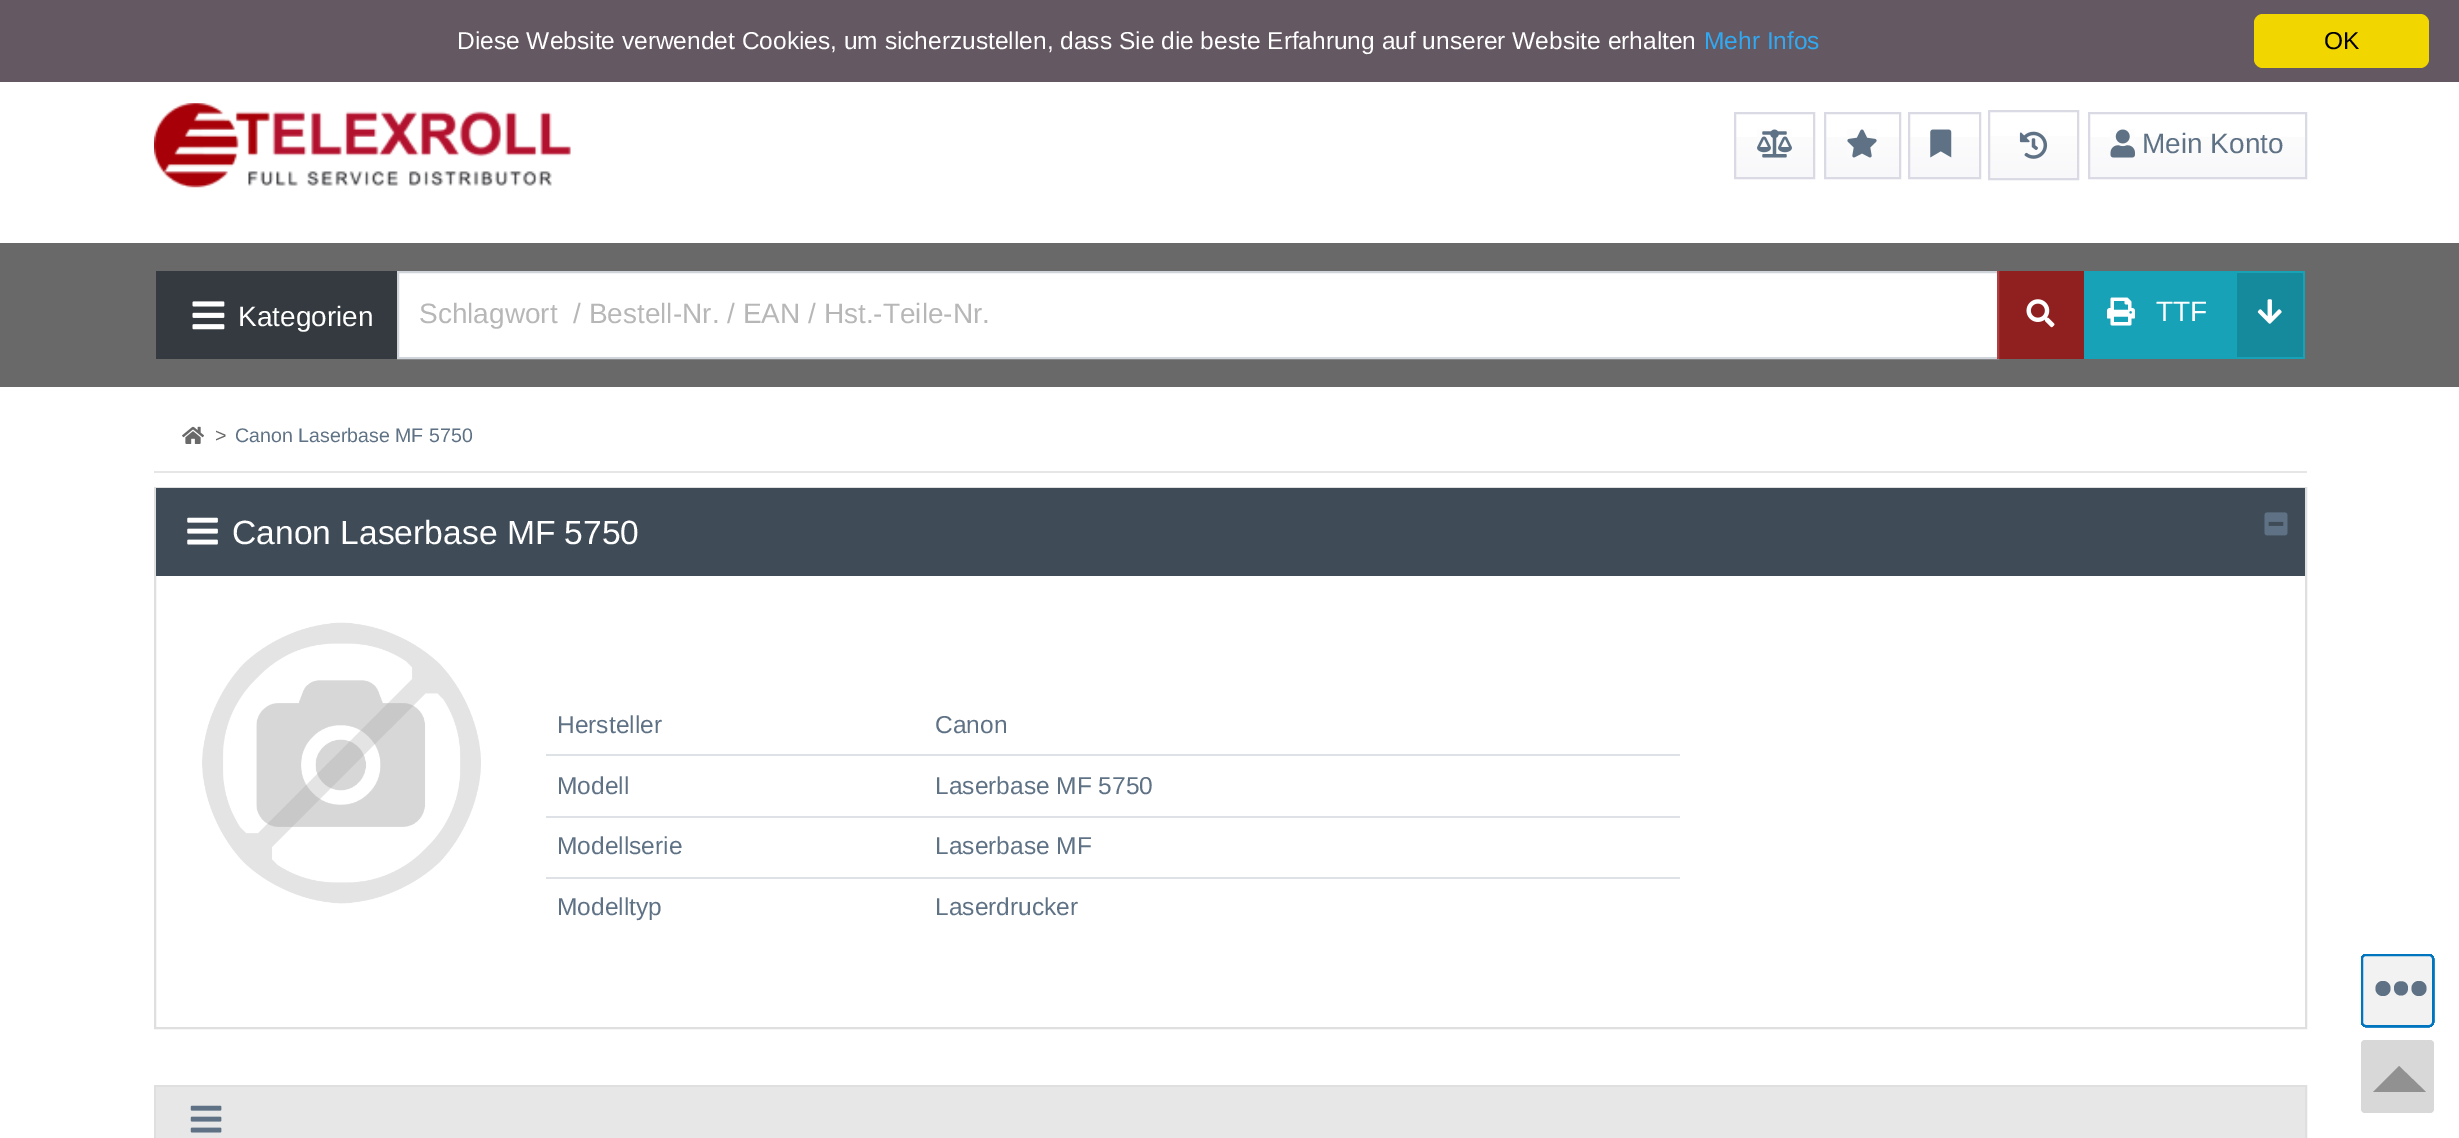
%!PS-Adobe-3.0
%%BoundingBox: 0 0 2459 1138
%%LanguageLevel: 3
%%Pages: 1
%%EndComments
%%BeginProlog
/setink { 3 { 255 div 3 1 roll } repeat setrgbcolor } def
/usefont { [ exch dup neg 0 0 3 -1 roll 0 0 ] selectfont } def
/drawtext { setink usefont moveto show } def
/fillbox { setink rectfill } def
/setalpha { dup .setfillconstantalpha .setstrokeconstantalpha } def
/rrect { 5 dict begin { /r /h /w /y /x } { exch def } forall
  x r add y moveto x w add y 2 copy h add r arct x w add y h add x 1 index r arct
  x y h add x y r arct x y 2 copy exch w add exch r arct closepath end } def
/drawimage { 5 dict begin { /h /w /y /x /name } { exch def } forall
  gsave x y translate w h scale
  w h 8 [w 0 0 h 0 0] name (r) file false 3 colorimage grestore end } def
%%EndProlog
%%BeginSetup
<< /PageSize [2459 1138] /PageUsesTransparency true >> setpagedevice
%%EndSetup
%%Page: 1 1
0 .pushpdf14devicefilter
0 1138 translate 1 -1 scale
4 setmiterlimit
0 0 2459 1138 255 255 255 fillbox
0 0 2459 82 100 88 98 fillbox
(Diese Website verwendet Cookies, um sicherzustellen, dass Sie die beste Erfahrung auf unserer Website erhalten) 457 49 /LiberationSans-Regular 24.5 255 255 255 drawtext
(Mehr Infos) 1704 49 /LiberationSans-Regular 24.5 49 168 240 drawtext
241 214 0 setink
2254 14 175 54 9 rrect fill
(OK) 2324 49 /LiberationSans-Regular 24.5 0 0 0 drawtext
(assets/img1.rgb) 154 103 417 85 drawimage
gsave 1736 137 moveto 1813 137 lineto 1813 177 lineto 1736 177 lineto closepath clip newpath
<< /ShadingType 2 /ColorSpace /DeviceRGB /Coords [1775 114 1775 177] /Extend [true true] /Function << /FunctionType 2 /Domain [0 1] /C0 [1 1 1] /C1 [0.973 0.973 0.98] /N 1 >> >> shfill grestore
218 218 229 setink
2 setlinewidth
1735 113 79 65 rectstroke
(assets/img2.rgb) 1757 129 35 29 drawimage
gsave 1826 137 moveto 1899 137 lineto 1899 177 lineto 1826 177 lineto closepath clip newpath
<< /ShadingType 2 /ColorSpace /DeviceRGB /Coords [1862 114 1862 177] /Extend [true true] /Function << /FunctionType 2 /Domain [0 1] /C0 [1 1 1] /C1 [0.973 0.973 0.98] /N 1 >> >> shfill grestore
1825 113 75 65 rectstroke
(assets/img3.rgb) 1847 129 30 29 drawimage
gsave 1910 137 moveto 1979 137 lineto 1979 177 lineto 1910 177 lineto closepath clip newpath
<< /ShadingType 2 /ColorSpace /DeviceRGB /Coords [1944 114 1944 177] /Extend [true true] /Function << /FunctionType 2 /Domain [0 1] /C0 [1 1 1] /C1 [0.973 0.973 0.98] /N 1 >> >> shfill grestore
1909 113 71 65 rectstroke
(assets/img4.rgb) 1930 129 22 29 drawimage
gsave 1990 136 moveto 2077 136 lineto 2077 178 lineto 1990 178 lineto closepath clip newpath
<< /ShadingType 2 /ColorSpace /DeviceRGB /Coords [2034 112 2034 179] /Extend [true true] /Function << /FunctionType 2 /Domain [0 1] /C0 [1 1 1] /C1 [0.973 0.973 0.98] /N 1 >> >> shfill grestore
1989 111 89 68 rectstroke
(assets/img5.rgb) 2019 131 29 28 drawimage
gsave 2090 137 moveto 2305 137 lineto 2305 177 lineto 2090 177 lineto closepath clip newpath
<< /ShadingType 2 /ColorSpace /DeviceRGB /Coords [2197 114 2197 177] /Extend [true true] /Function << /FunctionType 2 /Domain [0 1] /C0 [1 1 1] /C1 [0.973 0.973 0.98] /N 1 >> >> shfill grestore
2089 113 217 65 rectstroke
(assets/img6.rgb) 2110 129 25 29 drawimage
(Mein Konto) 2142 153 /LiberationSans-Regular 28 95 114 133 drawtext
0 243 2459 144 105 105 106 fillbox
156 271 241 88 52 58 64 fillbox
(assets/img7.rgb) 192 301 33 29 drawimage
(Kategorien) 238 326 /LiberationSans-Regular 28 255 255 255 drawtext
398 272 moveto 1998 272 lineto 1998 358 lineto 398 358 lineto closepath gsave fill grestore
206 212 218 setink
stroke
(Schlagwort  / Bestell-Nr. / EAN / Hst.-Teile-Nr.) 419 323 /LiberationSans-Regular 28 183 183 183 drawtext
0.7 setalpha
1997 271 87 88 161 0 0 fillbox
1 setalpha
(assets/img8.rgb) 2026 299 29 29 drawimage
2084 271 221 88 23 162 184 fillbox
(assets/img9.rgb) 2107 297 28 29 drawimage
(TTF) 2156 321 /LiberationSans-Regular 28 255 255 255 drawtext
2237 273 66 84 20 138 156 fillbox
(assets/img10.rgb) 2257 299 25 25 drawimage
(assets/img11.rgb) 182 426 22 18 drawimage
(>) 215 442 /LiberationSans-Regular 19.6 105 105 106 drawtext
(Canon Laserbase MF 5750) 235 442 /LiberationSans-Regular 19.6 95 114 133 drawtext
154 471 2153 2 230 230 230 fillbox
223 223 223 setink
155 488 2151 540 rectstroke
156 488 2149 88 63 76 88 fillbox
(assets/img12.rgb) 187 517 31 28 drawimage
(Canon Laserbase MF 5750) 232 544 /LiberationSans-Regular 33.6 255 255 255 drawtext
(assets/img13.rgb) 2264 512 24 24 drawimage
(assets/img14.rgb) 202 622 279 282 drawimage
(Hersteller) 557 733 /LiberationSans-Regular 24.5 95 114 133 drawtext
(Canon) 935 733 /LiberationSans-Regular 24.5 95 114 133 drawtext
(Modell) 557 794 /LiberationSans-Regular 24.5 95 114 133 drawtext
546 754 1134 2 222 226 230 fillbox
(Laserbase MF 5750) 935 794 /LiberationSans-Regular 24.5 95 114 133 drawtext
(Modellserie) 557 854 /LiberationSans-Regular 24.5 95 114 133 drawtext
546 816 1134 2 222 226 230 fillbox
(Laserbase MF) 935 854 /LiberationSans-Regular 24.5 95 114 133 drawtext
(Modelltyp) 557 915 /LiberationSans-Regular 24.5 95 114 133 drawtext
546 877 1134 2 222 226 230 fillbox
(Laserdrucker) 935 915 /LiberationSans-Regular 24.5 95 114 133 drawtext
223 223 223 setink
155 1086 2151 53 rectstroke
156 1087 2149 51 231 231 231 fillbox
(assets/img15.rgb) 190 1105 32 28 drawimage
0 117 191 setink
2362 955 71 71 4 rrect stroke
2362 955 71 71 4 rrect stroke
2362 955 71 71 4 rrect stroke
2362 955 71 71 4 rrect stroke
2362 955 71 71 4 rrect stroke
242 242 242 setink
2362 955 71 71 4 rrect gsave fill grestore
0 117 191 setink
stroke
95 114 133 setink
2408 988 moveto 2408 998 2394 998 2394 988 curveto 2394 979 2408 979 2408 988 curveto closepath 2419 981 moveto 2409 981 2409 996 2419 996 curveto 2429 996 2429 981 2419 981 curveto closepath 2383 981 moveto 2373 981 2373 996 2383 996 curveto 2393 996 2393 981 2383 981 curveto closepath fill
216 216 216 setink
2361 1040 73 73 4 rrect fill
145 145 145 setink
2426 1092 moveto 2373 1092 lineto 2399 1066 lineto closepath fill
.poppdf14devicefilter showpage
%%EOF
